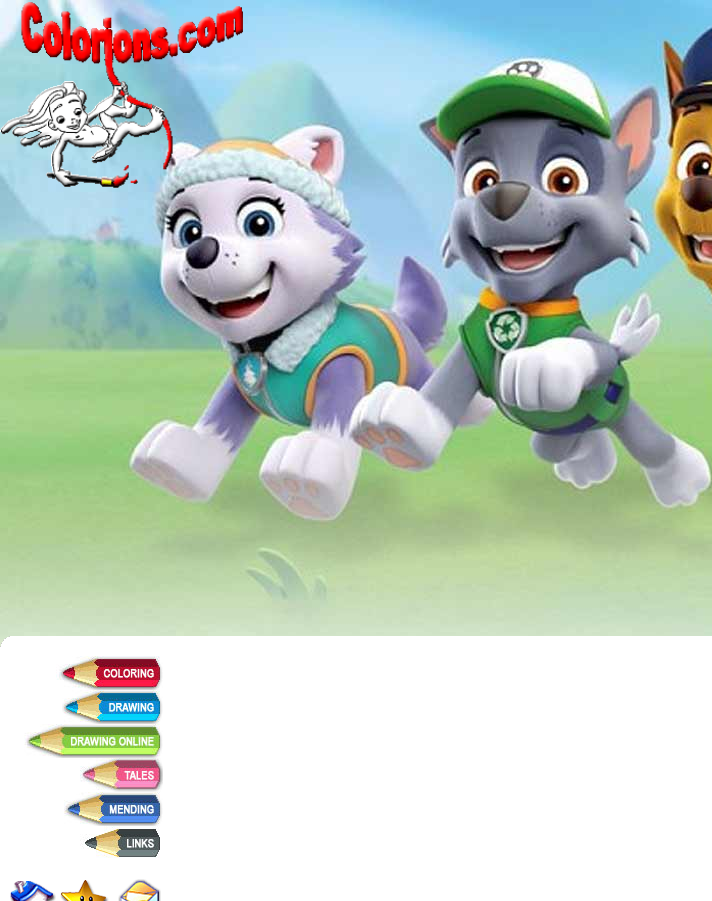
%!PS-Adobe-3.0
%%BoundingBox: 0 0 712 901
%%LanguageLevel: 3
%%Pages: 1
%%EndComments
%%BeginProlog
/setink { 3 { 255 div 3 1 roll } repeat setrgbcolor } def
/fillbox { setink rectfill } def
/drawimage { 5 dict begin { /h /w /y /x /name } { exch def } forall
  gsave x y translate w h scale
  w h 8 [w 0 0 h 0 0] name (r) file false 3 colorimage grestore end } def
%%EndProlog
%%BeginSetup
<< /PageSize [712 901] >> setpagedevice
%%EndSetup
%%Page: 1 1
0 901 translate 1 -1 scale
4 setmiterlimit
0 0 712 901 255 255 255 fillbox
(assets/img1.rgb) 0 0 712 646 drawimage
(assets/img2.rgb) 0 2 243 186 drawimage
(assets/img3.rgb) 0 636 50 20 drawimage
50 636 662 10 255 255 255 fillbox
(assets/img4.rgb) 56 656 107 34 drawimage
(assets/img5.rgb) 62 690 101 34 drawimage
(assets/img6.rgb) 24 724 139 34 drawimage
(assets/img7.rgb) 80 758 83 34 drawimage
(assets/img8.rgb) 64 792 99 34 drawimage
(assets/img9.rgb) 80 826 80 32 drawimage
(assets/img10.rgb) 10 881 46 20 drawimage
(assets/img11.rgb) 60 880 49 21 drawimage
(assets/img12.rgb) 118 879 43 22 drawimage
showpage
%%EOF
